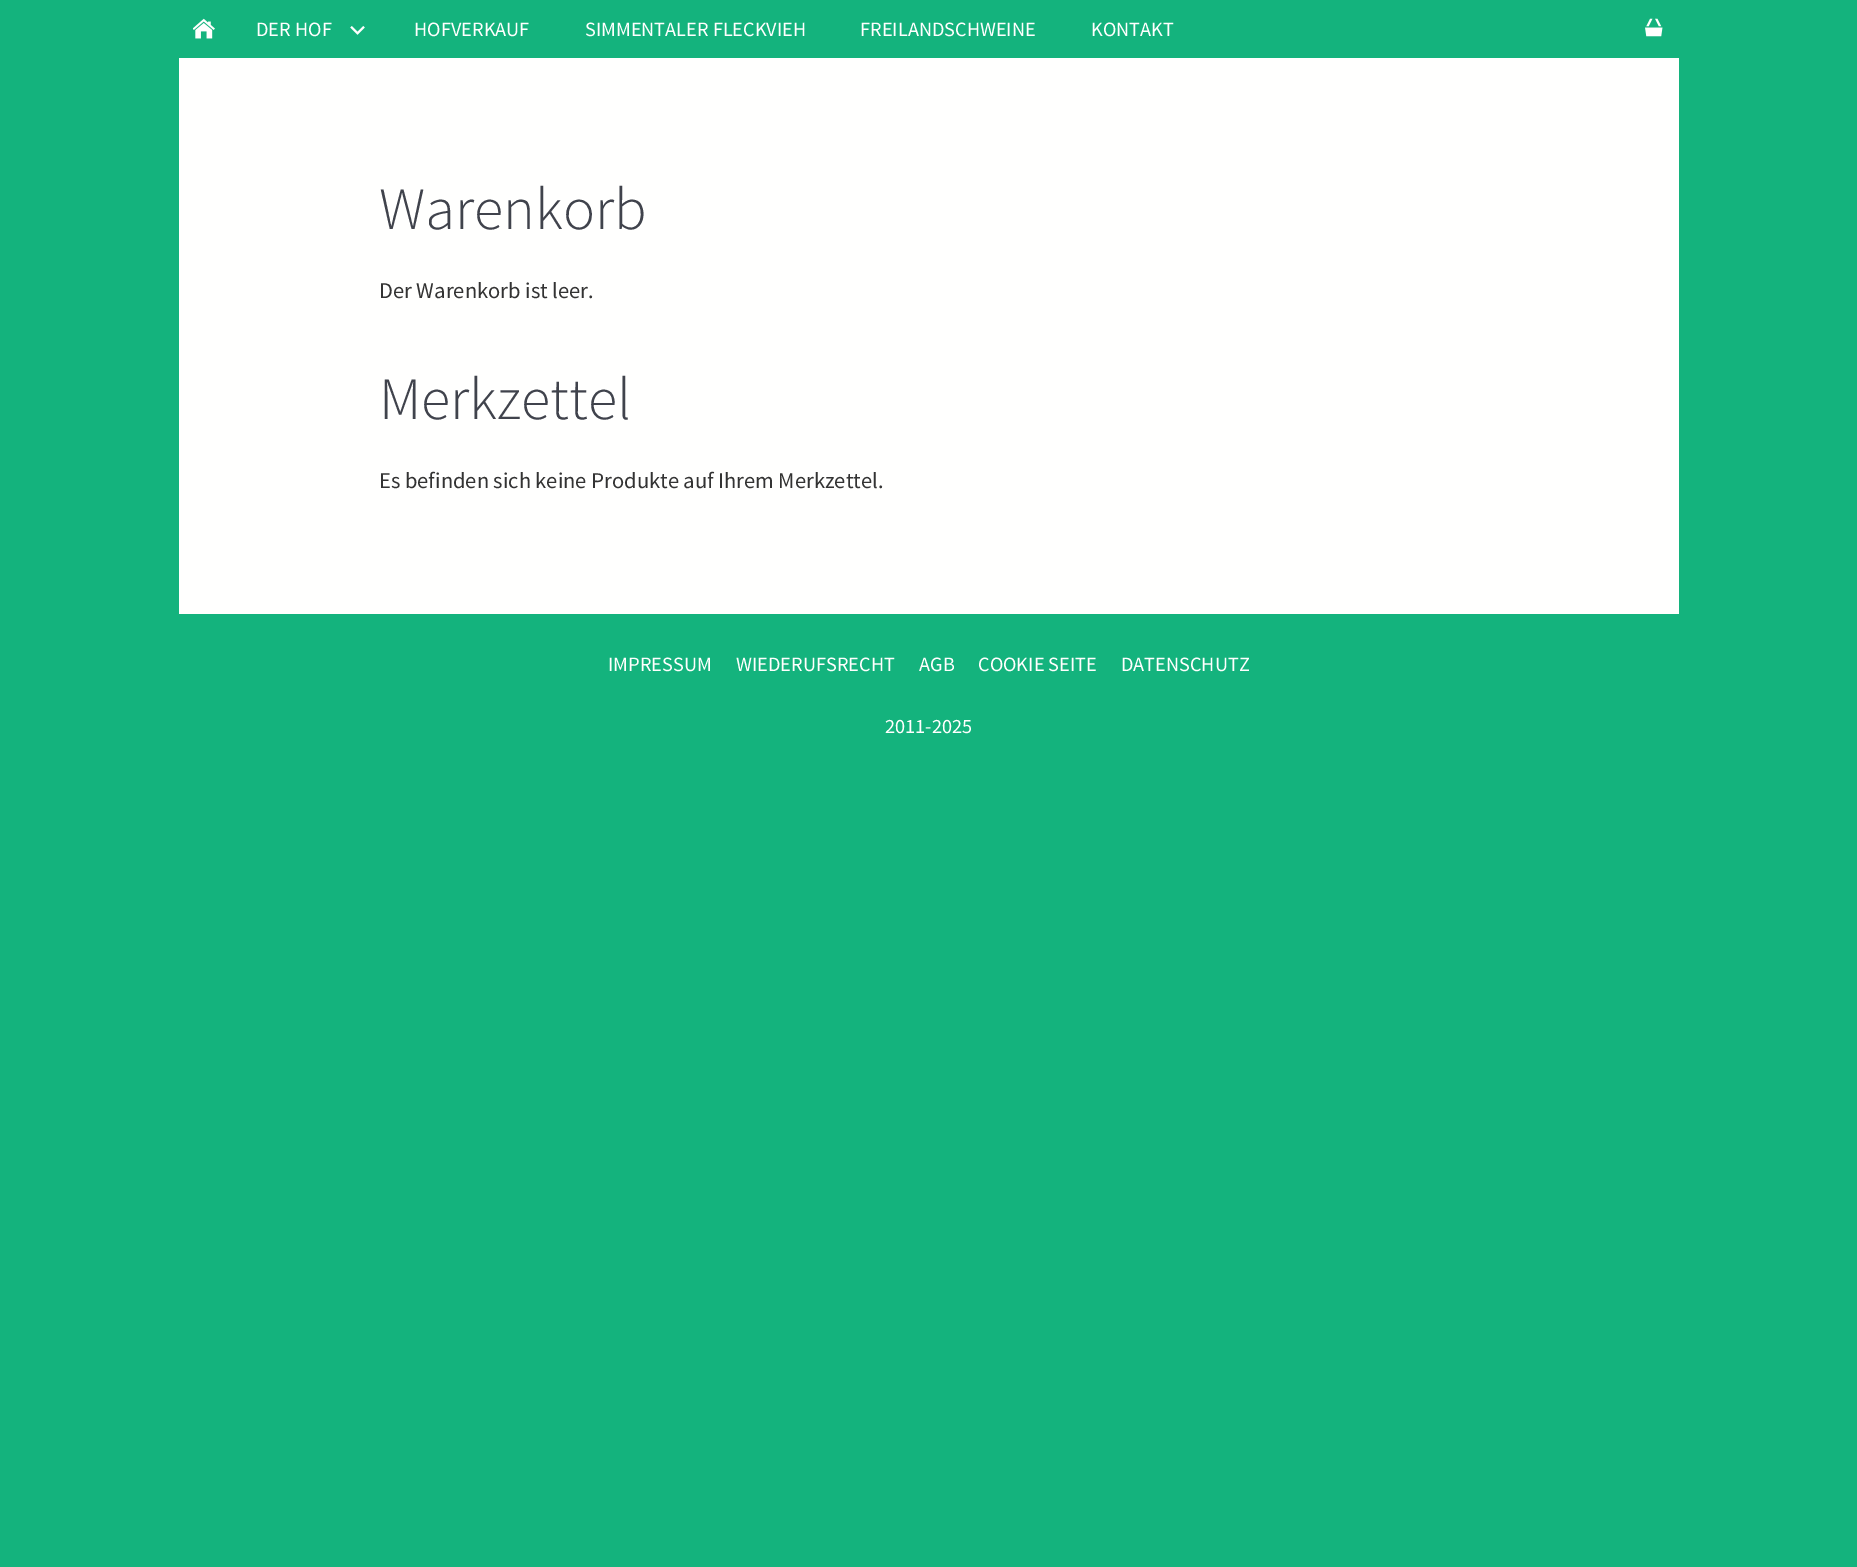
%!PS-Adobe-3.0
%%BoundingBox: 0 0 1857 1567
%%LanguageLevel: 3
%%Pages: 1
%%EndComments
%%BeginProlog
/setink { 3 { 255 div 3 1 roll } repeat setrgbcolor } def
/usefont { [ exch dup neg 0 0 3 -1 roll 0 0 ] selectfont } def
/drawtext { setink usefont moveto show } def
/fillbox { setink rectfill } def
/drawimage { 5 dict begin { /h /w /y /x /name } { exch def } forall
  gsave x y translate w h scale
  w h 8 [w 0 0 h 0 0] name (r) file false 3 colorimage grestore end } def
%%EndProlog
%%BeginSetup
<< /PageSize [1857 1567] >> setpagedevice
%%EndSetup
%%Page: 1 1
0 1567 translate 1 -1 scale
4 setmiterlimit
0 0 1857 1567 20 179 125 fillbox
(assets/img1.rgb) 193 18 22 21 drawimage
(assets/img2.rgb) 350 26 15 9 drawimage
(DER HOF) 256 36 /SourceSansPro-Regular 20.25 255 255 254 drawtext
(HOFVERKAUF) 414 36 /SourceSansPro-Regular 20.25 255 255 254 drawtext
(SIMMENTALER FLECKVIEH) 585 36 /SourceSansPro-Regular 20.25 255 255 254 drawtext
(FREILANDSCHWEINE) 860 36 /SourceSansPro-Regular 20.25 255 255 254 drawtext
(KONTAKT) 1091 36 /SourceSansPro-Regular 20.25 255 255 254 drawtext
(assets/img3.rgb) 1645 18 18 19 drawimage
179 58 1500 556 255 255 254 fillbox
(Warenkorb) 379 229 /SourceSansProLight-Light 60 64 67 76 drawtext
(Der Warenkorb ist leer.) 379 298 /SourceSansPro-Regular 22.5 51 51 51 drawtext
(Merkzettel) 379 419 /SourceSansProLight-Light 60 64 67 76 drawtext
(Es befinden sich keine Produkte auf Ihrem Merkzettel.) 379 488 /SourceSansPro-Regular 22.5 51 51 51 drawtext
(IMPRESSUM) 608 671 /SourceSansPro-Regular 20.25 255 255 254 drawtext
(WIEDERUFSRECHT) 736 671 /SourceSansPro-Regular 20.25 255 255 254 drawtext
(AGB) 919 671 /SourceSansPro-Regular 20.25 255 255 254 drawtext
(COOKIE SEITE) 978 671 /SourceSansPro-Regular 20.25 255 255 254 drawtext
(DATENSCHUTZ) 1121 671 /SourceSansPro-Regular 20.25 255 255 254 drawtext
(2011-2025) 885 733 /SourceSansPro-Regular 20.25 255 255 254 drawtext
showpage
%%EOF
